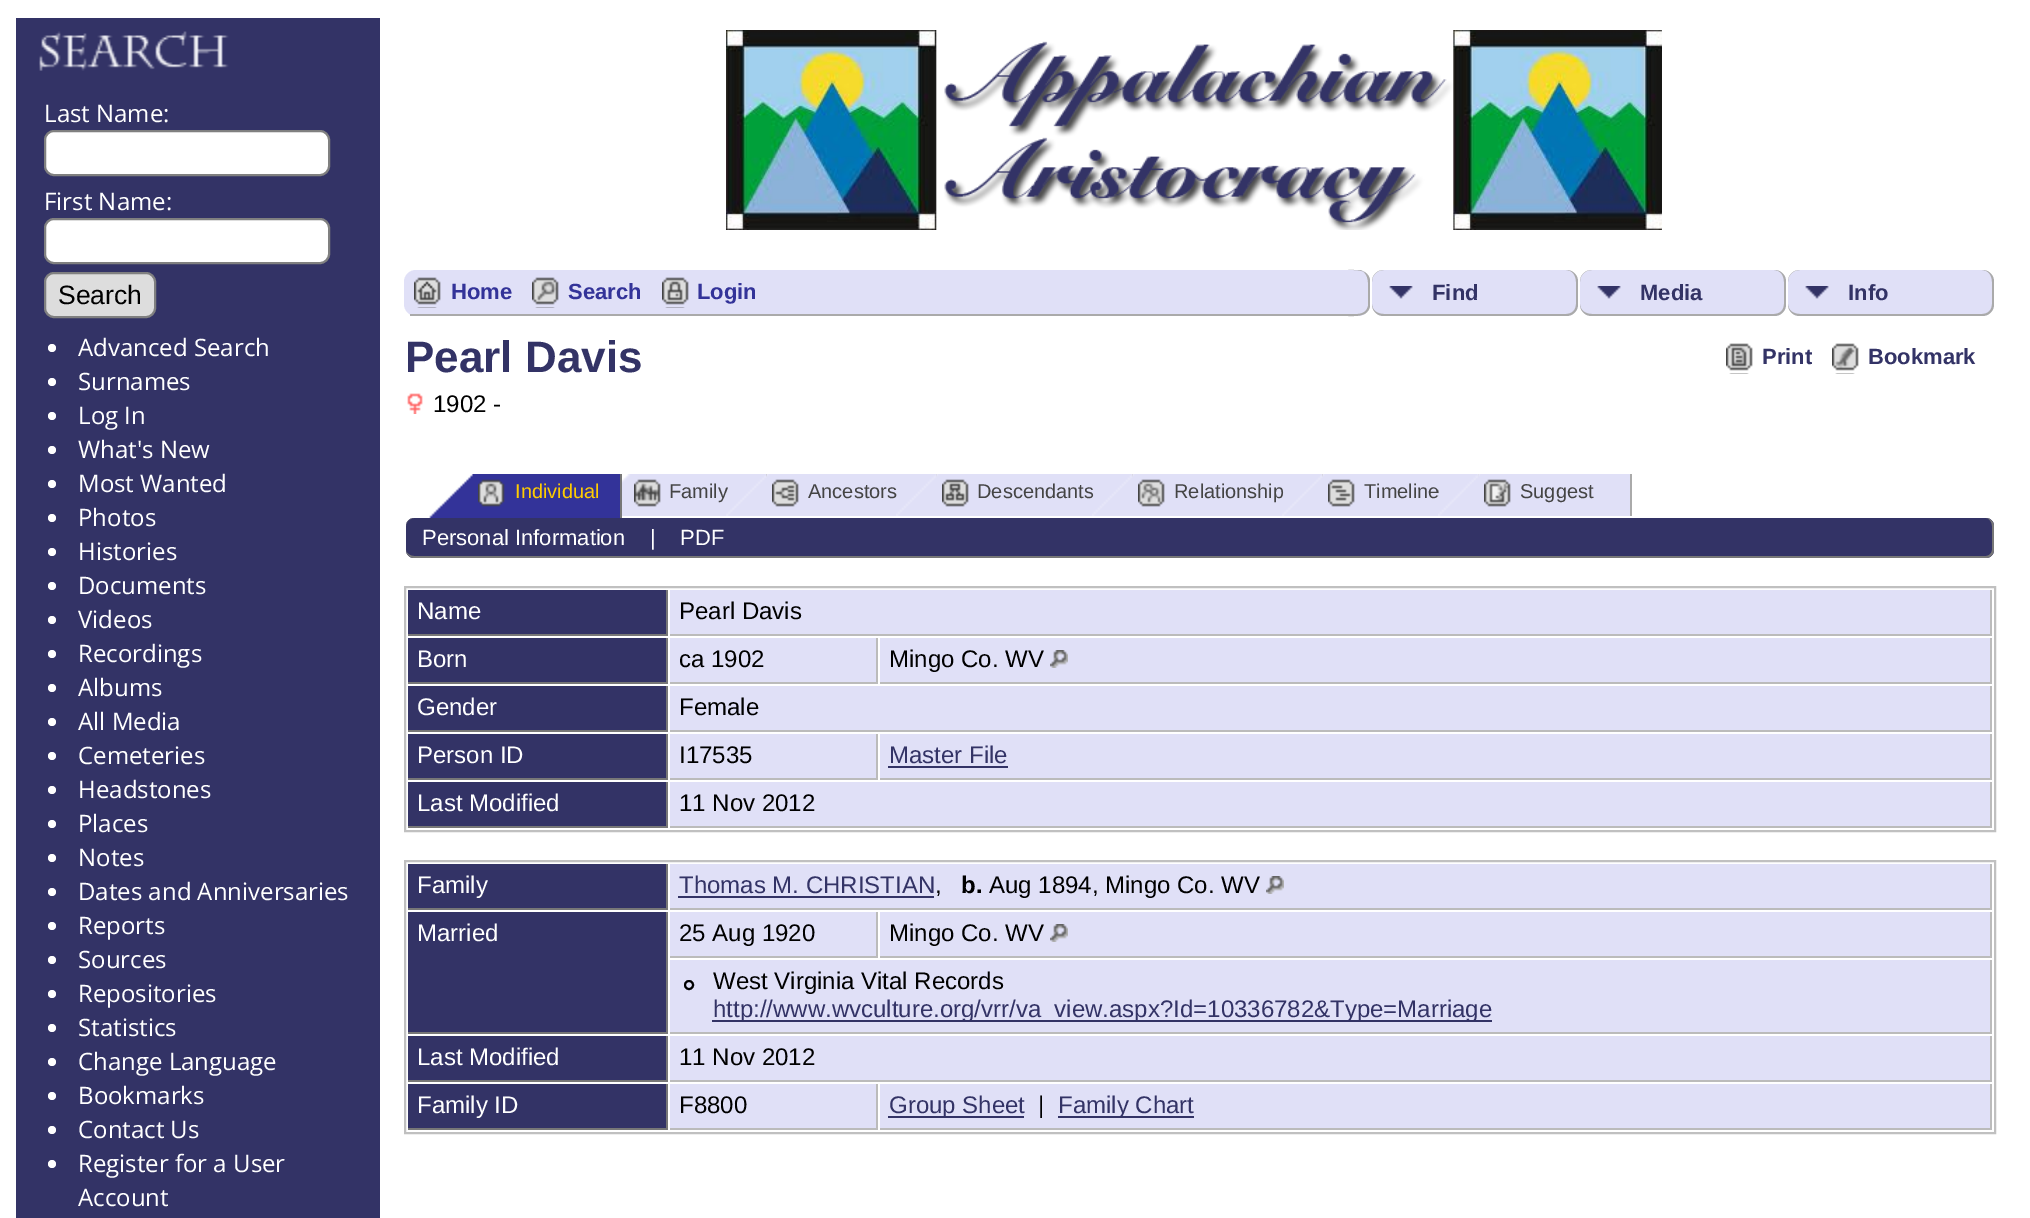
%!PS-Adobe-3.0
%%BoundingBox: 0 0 2030 1218
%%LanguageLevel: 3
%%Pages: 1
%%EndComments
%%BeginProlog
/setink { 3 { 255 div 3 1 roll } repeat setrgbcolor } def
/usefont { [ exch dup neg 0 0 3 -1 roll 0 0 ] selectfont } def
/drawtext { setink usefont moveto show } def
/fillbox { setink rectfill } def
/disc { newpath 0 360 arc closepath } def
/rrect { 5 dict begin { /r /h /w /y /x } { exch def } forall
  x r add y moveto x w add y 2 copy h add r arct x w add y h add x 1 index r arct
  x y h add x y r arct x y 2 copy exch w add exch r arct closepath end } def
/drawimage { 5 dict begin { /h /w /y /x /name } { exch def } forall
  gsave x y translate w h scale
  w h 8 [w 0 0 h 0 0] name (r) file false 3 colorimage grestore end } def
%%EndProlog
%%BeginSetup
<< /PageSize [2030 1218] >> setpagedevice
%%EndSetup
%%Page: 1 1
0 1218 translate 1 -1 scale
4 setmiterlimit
0 0 2030 1218 255 255 255 fillbox
16 18 364 1200 51 51 102 fillbox
(assets/img1.rgb) 39 31 190 40 drawimage
(Last Name:) 44 122 /OpenSans-Regular 24 255 255 255 drawtext
45 131 284 44 9 rrect gsave fill grestore
128 128 128 setink
2 setlinewidth
stroke
(First Name:) 44 210 /OpenSans-Regular 24 255 255 255 drawtext
45 219 284 44 9 rrect gsave fill grestore
128 128 128 setink
stroke
221 221 221 setink
45 273 110 44 9 rrect gsave fill grestore
128 128 128 setink
stroke
(Search) 58 304 /LiberationSans-Regular 26.5 0 0 0 drawtext
255 255 255 setink
52 348 4 disc fill
(Advanced Search) 78 356 /OpenSans-Regular 24 255 255 255 drawtext
52 382 4 disc fill
(Surnames) 78 390 /OpenSans-Regular 24 255 255 255 drawtext
52 416 4 disc fill
(Log In) 78 424 /OpenSans-Regular 24 255 255 255 drawtext
52 450 4 disc fill
(What's New) 78 458 /OpenSans-Regular 24 255 255 255 drawtext
52 484 4 disc fill
(Most Wanted) 78 492 /OpenSans-Regular 24 255 255 255 drawtext
52 518 4 disc fill
(Photos) 78 526 /OpenSans-Regular 24 255 255 255 drawtext
52 552 4 disc fill
(Histories) 78 560 /OpenSans-Regular 24 255 255 255 drawtext
52 586 4 disc fill
(Documents) 78 594 /OpenSans-Regular 24 255 255 255 drawtext
52 620 4 disc fill
(Videos) 78 628 /OpenSans-Regular 24 255 255 255 drawtext
52 654 4 disc fill
(Recordings) 78 662 /OpenSans-Regular 24 255 255 255 drawtext
52 688 4 disc fill
(Albums) 78 696 /OpenSans-Regular 24 255 255 255 drawtext
52 722 4 disc fill
(All Media) 78 730 /OpenSans-Regular 24 255 255 255 drawtext
52 756 4 disc fill
(Cemeteries) 78 764 /OpenSans-Regular 24 255 255 255 drawtext
52 790 4 disc fill
(Headstones) 78 798 /OpenSans-Regular 24 255 255 255 drawtext
52 824 4 disc fill
(Places) 78 832 /OpenSans-Regular 24 255 255 255 drawtext
52 858 4 disc fill
(Notes) 78 866 /OpenSans-Regular 24 255 255 255 drawtext
52 892 4 disc fill
(Dates and Anniversaries) 78 900 /OpenSans-Regular 24 255 255 255 drawtext
52 926 4 disc fill
(Reports) 78 934 /OpenSans-Regular 24 255 255 255 drawtext
52 960 4 disc fill
(Sources) 78 968 /OpenSans-Regular 24 255 255 255 drawtext
52 994 4 disc fill
(Repositories) 78 1002 /OpenSans-Regular 24 255 255 255 drawtext
52 1028 4 disc fill
(Statistics) 78 1036 /OpenSans-Regular 24 255 255 255 drawtext
52 1062 4 disc fill
(Change Language) 78 1070 /OpenSans-Regular 24 255 255 255 drawtext
52 1096 4 disc fill
(Bookmarks) 78 1104 /OpenSans-Regular 24 255 255 255 drawtext
52 1130 4 disc fill
(Contact Us) 78 1138 /OpenSans-Regular 24 255 255 255 drawtext
52 1164 4 disc fill
(Register for a User) 78 1172 /OpenSans-Regular 24 255 255 255 drawtext
(Account) 78 1206 /OpenSans-Regular 24 255 255 255 drawtext
(assets/img2.rgb) 726 30 936 200 drawimage
224 224 247 setink
404 270 1592 46 12 rrect fill
410 314 938 2 170 170 170 fillbox
(assets/img3.rgb) 414 277 27 31 drawimage
(Home) 451 299 /LiberationSans-Bold 22 51 51 153 drawtext
(assets/img4.rgb) 532 277 27 31 drawimage
(Search) 568 299 /LiberationSans-Bold 22 51 51 153 drawtext
(assets/img5.rgb) 662 277 27 31 drawimage
(Login) 697 299 /LiberationSans-Bold 22 51 51 153 drawtext
1358 270 638 46 255 255 255 fillbox
224 224 247 setink
1348 270 moveto 1358 270 lineto 1364.5 270 1370 275.5 1370 282 curveto 1370 304 lineto 1370 310.5 1364.5 316 1358 316 curveto 1348 316 lineto closepath fill
170 170 170 setink
1348 270 moveto 1356 270 1368 269 1370 280 curveto 1370 306 lineto 1368 317 1356 316 1348 316 curveto closepath 1348 270 moveto 1360 270 lineto 1370 273 1368 286 1368 293 curveto 1368 306 lineto 1366 316 1355 314 1348 314 curveto closepath eofill
224 224 247 setink
1372 270 206 46 12 rrect fill
(assets/img6.rgb) 1389 286 24 13 drawimage
170 170 170 setink
1384 270 moveto 1566 270 lineto 1573 270 1578 275 1578 282 curveto 1578 304 lineto 1578 311 1573 316 1566 316 curveto 1384 316 lineto 1377 316 1372 311 1372 304 curveto 1372 282 lineto 1372 275 1377 270 1384 270 curveto closepath 1384 270 moveto 1566 270 lineto 1572 270 1576 275 1576 282 curveto 1576 304 lineto 1576 310 1572 314 1566 314 curveto 1384 314 lineto 1377 314 1372 310 1372 304 curveto 1372 282 lineto 1372 275 1377 270 1384 270 curveto closepath eofill
(Find) 1432 300 /LiberationSans-Bold 22 51 51 102 drawtext
224 224 247 setink
1580 270 206 46 12 rrect fill
(assets/img6.rgb) 1597 286 24 13 drawimage
170 170 170 setink
1592 270 moveto 1774 270 lineto 1781 270 1786 275 1786 282 curveto 1786 304 lineto 1786 311 1781 316 1774 316 curveto 1592 316 lineto 1585 316 1580 311 1580 304 curveto 1580 282 lineto 1580 275 1585 270 1592 270 curveto closepath 1592 270 moveto 1774 270 lineto 1780 270 1784 275 1784 282 curveto 1784 304 lineto 1784 310 1780 314 1774 314 curveto 1592 314 lineto 1585 314 1580 310 1580 304 curveto 1580 282 lineto 1580 275 1585 270 1592 270 curveto closepath eofill
(Media) 1640 300 /LiberationSans-Bold 22 51 51 102 drawtext
224 224 247 setink
1788 270 206 46 12 rrect fill
(assets/img6.rgb) 1805 286 24 13 drawimage
170 170 170 setink
1800 270 moveto 1982 270 lineto 1989 270 1994 275 1994 282 curveto 1994 304 lineto 1994 311 1989 316 1982 316 curveto 1800 316 lineto 1793 316 1788 311 1788 304 curveto 1788 282 lineto 1788 275 1793 270 1800 270 curveto closepath 1800 270 moveto 1982 270 lineto 1988 270 1992 275 1992 282 curveto 1992 304 lineto 1992 310 1988 314 1982 314 curveto 1800 314 lineto 1793 314 1788 310 1788 304 curveto 1788 282 lineto 1788 275 1793 270 1800 270 curveto closepath eofill
(Info) 1848 300 /LiberationSans-Bold 22 51 51 102 drawtext
(Pearl Davis) 405 372 /LiberationSans-Bold 44 51 51 102 drawtext
(assets/img7.rgb) 407 393 16 21 drawimage
(1902 -) 433 412 /LiberationSans-Regular 24 0 0 0 drawtext
(assets/img8.rgb) 429 474 191 44 drawimage
620 474 2 44 119 119 119 fillbox
(assets/img9.rgb) 478 479 27 28 drawimage
(Individual) 515 498 /LiberationSans-Regular 20 255 204 0 drawtext
(assets/img10.rgb) 622 474 144 42 drawimage
766 474 1 3 170 170 170 fillbox
(assets/img11.rgb) 634 479 27 28 drawimage
(Family) 669 498 /LiberationSans-Regular 20 68 68 68 drawtext
(assets/img12.rgb) 726 474 211 42 drawimage
(assets/img13.rgb) 772 479 27 28 drawimage
(Ancestors) 808 498 /LiberationSans-Regular 20 68 68 68 drawtext
(assets/img14.rgb) 896 474 237 42 drawimage
(assets/img15.rgb) 942 479 27 28 drawimage
(Descendants) 977 498 /LiberationSans-Regular 20 68 68 68 drawtext
(assets/img16.rgb) 1092 474 230 42 drawimage
1322 474 1 3 170 170 170 fillbox
(assets/img17.rgb) 1138 479 27 28 drawimage
(Relationship) 1174 498 /LiberationSans-Regular 20 68 68 68 drawtext
(assets/img18.rgb) 1282 474 197 42 drawimage
(assets/img19.rgb) 1328 479 27 28 drawimage
(Timeline) 1364 498 /LiberationSans-Regular 20 68 68 68 drawtext
(assets/img20.rgb) 1438 474 192 42 drawimage
1630 474 2 42 170 170 170 fillbox
(assets/img21.rgb) 1484 479 27 28 drawimage
(Suggest) 1520 498 /LiberationSans-Regular 20 68 68 68 drawtext
51 51 102 setink
406 518 1588 40 8 rrect fill
119 119 119 setink
414 518 moveto 1986 518 lineto 1990 518 1994 522 1994 526 curveto 1994 550 lineto 1994 554 1990 558 1986 558 curveto 414 558 lineto 410 558 406 554 406 550 curveto 406 526 lineto 406 522 410 518 414 518 curveto closepath 414 518 moveto 1986 518 lineto 1989 518 1992 522 1992 526 curveto 1992 550 lineto 1992 553 1989 556 1986 556 curveto 414 556 lineto 410 556 406 553 406 550 curveto 406 526 lineto 406 522 410 518 414 518 curveto closepath eofill
(Personal Information) 422 545 /LiberationSans-Regular 22 255 255 255 drawtext
(|) 650 545 /LiberationSans-Regular 22 255 255 255 drawtext
(PDF) 680 545 /LiberationSans-Regular 22 255 255 255 drawtext
192 192 192 setink
405 587 1590 244 rectstroke
408 590 258 44 51 51 102 fillbox
666 590 2 46 119 119 119 fillbox
408 634 260 2 119 119 119 fillbox
(Name) 417 619 /LiberationSans-Regular 24 255 255 255 drawtext
670 590 1320 44 224 224 247 fillbox
1990 590 2 46 187 187 187 fillbox
670 634 1322 2 187 187 187 fillbox
(Pearl Davis) 679 619 /LiberationSans-Regular 24 0 0 0 drawtext
408 638 258 44 51 51 102 fillbox
666 638 2 46 119 119 119 fillbox
408 682 260 2 119 119 119 fillbox
(Born) 417 667 /LiberationSans-Regular 24 255 255 255 drawtext
670 638 206 44 224 224 247 fillbox
876 638 2 46 187 187 187 fillbox
670 682 208 2 187 187 187 fillbox
(ca 1902) 679 667 /LiberationSans-Regular 24 0 0 0 drawtext
880 638 1110 44 224 224 247 fillbox
1990 638 2 46 187 187 187 fillbox
880 682 1112 2 187 187 187 fillbox
(Mingo Co. WV) 889 667 /LiberationSans-Regular 24 0 0 0 drawtext
(assets/img22.rgb) 1050 650 18 18 drawimage
408 686 258 44 51 51 102 fillbox
666 686 2 46 119 119 119 fillbox
408 730 260 2 119 119 119 fillbox
(Gender) 417 715 /LiberationSans-Regular 24 255 255 255 drawtext
670 686 1320 44 224 224 247 fillbox
1990 686 2 46 187 187 187 fillbox
670 730 1322 2 187 187 187 fillbox
(Female) 679 715 /LiberationSans-Regular 24 0 0 0 drawtext
408 734 258 44 51 51 102 fillbox
666 734 2 46 119 119 119 fillbox
408 778 260 2 119 119 119 fillbox
(Person ID) 417 763 /LiberationSans-Regular 24 255 255 255 drawtext
670 734 206 44 224 224 247 fillbox
876 734 2 46 187 187 187 fillbox
670 778 208 2 187 187 187 fillbox
(I17535) 679 763 /LiberationSans-Regular 24 0 0 0 drawtext
880 734 1110 44 224 224 247 fillbox
1990 734 2 46 187 187 187 fillbox
880 778 1112 2 187 187 187 fillbox
(Master File) 889 763 /LiberationSans-Regular 24 51 51 102 drawtext
888 766 120 2 51 51 102 fillbox
408 782 258 44 51 51 102 fillbox
666 782 2 46 119 119 119 fillbox
408 826 260 2 119 119 119 fillbox
(Last Modified) 417 811 /LiberationSans-Regular 24 255 255 255 drawtext
670 782 1320 44 224 224 247 fillbox
1990 782 2 46 187 187 187 fillbox
670 826 1322 2 187 187 187 fillbox
(11 Nov 2012) 679 811 /LiberationSans-Regular 24 0 0 0 drawtext
192 192 192 setink
405 861 1590 272 rectstroke
408 864 258 44 51 51 102 fillbox
666 864 2 46 119 119 119 fillbox
408 908 260 2 119 119 119 fillbox
(Family) 417 893 /LiberationSans-Regular 24 255 255 255 drawtext
670 864 1320 44 224 224 247 fillbox
1990 864 2 46 187 187 187 fillbox
670 908 1322 2 187 187 187 fillbox
(Thomas M. CHRISTIAN) 679 893 /LiberationSans-Regular 24 51 51 102 drawtext
678 896 256 2 51 51 102 fillbox
(,) 935 893 /LiberationSans-Regular 24 0 0 0 drawtext
(b.) 961 893 /LiberationSans-Bold 24 0 0 0 drawtext
(Aug 1894, Mingo Co. WV) 989 893 /LiberationSans-Regular 24 0 0 0 drawtext
(assets/img22.rgb) 1266 876 18 18 drawimage
408 912 258 120 51 51 102 fillbox
666 912 2 122 119 119 119 fillbox
408 1032 260 2 119 119 119 fillbox
(Married) 417 941 /LiberationSans-Regular 24 255 255 255 drawtext
670 912 206 44 224 224 247 fillbox
876 912 2 46 187 187 187 fillbox
670 956 208 2 187 187 187 fillbox
(25 Aug 1920) 679 941 /LiberationSans-Regular 24 0 0 0 drawtext
880 912 1110 44 224 224 247 fillbox
1990 912 2 46 187 187 187 fillbox
880 956 1112 2 187 187 187 fillbox
(Mingo Co. WV) 889 941 /LiberationSans-Regular 24 0 0 0 drawtext
(assets/img22.rgb) 1050 924 18 18 drawimage
670 960 1320 72 224 224 247 fillbox
1990 960 2 74 187 187 187 fillbox
670 1032 1322 2 187 187 187 fillbox
0 0 0 setink
689 985 4 disc stroke
(West Virginia Vital Records) 713 989 /LiberationSans-Regular 24 0 0 0 drawtext
712 1020 780 2 51 51 102 fillbox
(http://www.wvculture.org/vrr/va_view.aspx?Id=10336782&Type=Marriage) 713 1017 /LiberationSans-Regular 24 51 51 102 drawtext
408 1036 258 44 51 51 102 fillbox
666 1036 2 46 119 119 119 fillbox
408 1080 260 2 119 119 119 fillbox
(Last Modified) 417 1065 /LiberationSans-Regular 24 255 255 255 drawtext
670 1036 1320 44 224 224 247 fillbox
1990 1036 2 46 187 187 187 fillbox
670 1080 1322 2 187 187 187 fillbox
(11 Nov 2012) 679 1065 /LiberationSans-Regular 24 0 0 0 drawtext
408 1084 258 44 51 51 102 fillbox
666 1084 2 46 119 119 119 fillbox
408 1128 260 2 119 119 119 fillbox
(Family ID) 417 1113 /LiberationSans-Regular 24 255 255 255 drawtext
670 1084 206 44 224 224 247 fillbox
876 1084 2 46 187 187 187 fillbox
670 1128 208 2 187 187 187 fillbox
(F8800) 679 1113 /LiberationSans-Regular 24 0 0 0 drawtext
880 1084 1110 44 224 224 247 fillbox
1990 1084 2 46 187 187 187 fillbox
880 1128 1112 2 187 187 187 fillbox
888 1116 136 2 51 51 102 fillbox
(Group Sheet) 889 1113 /LiberationSans-Regular 24 51 51 102 drawtext
(|) 1038 1113 /LiberationSans-Regular 24 0 0 0 drawtext
1058 1116 136 2 51 51 102 fillbox
(Family Chart) 1058 1113 /LiberationSans-Regular 24 51 51 102 drawtext
(assets/img23.rgb) 1726 343 27 31 drawimage
(Print) 1762 364 /LiberationSans-Bold 22 51 51 102 drawtext
(assets/img24.rgb) 1832 343 27 31 drawimage
(Bookmark) 1868 364 /LiberationSans-Bold 22 51 51 102 drawtext
showpage
%%EOF
